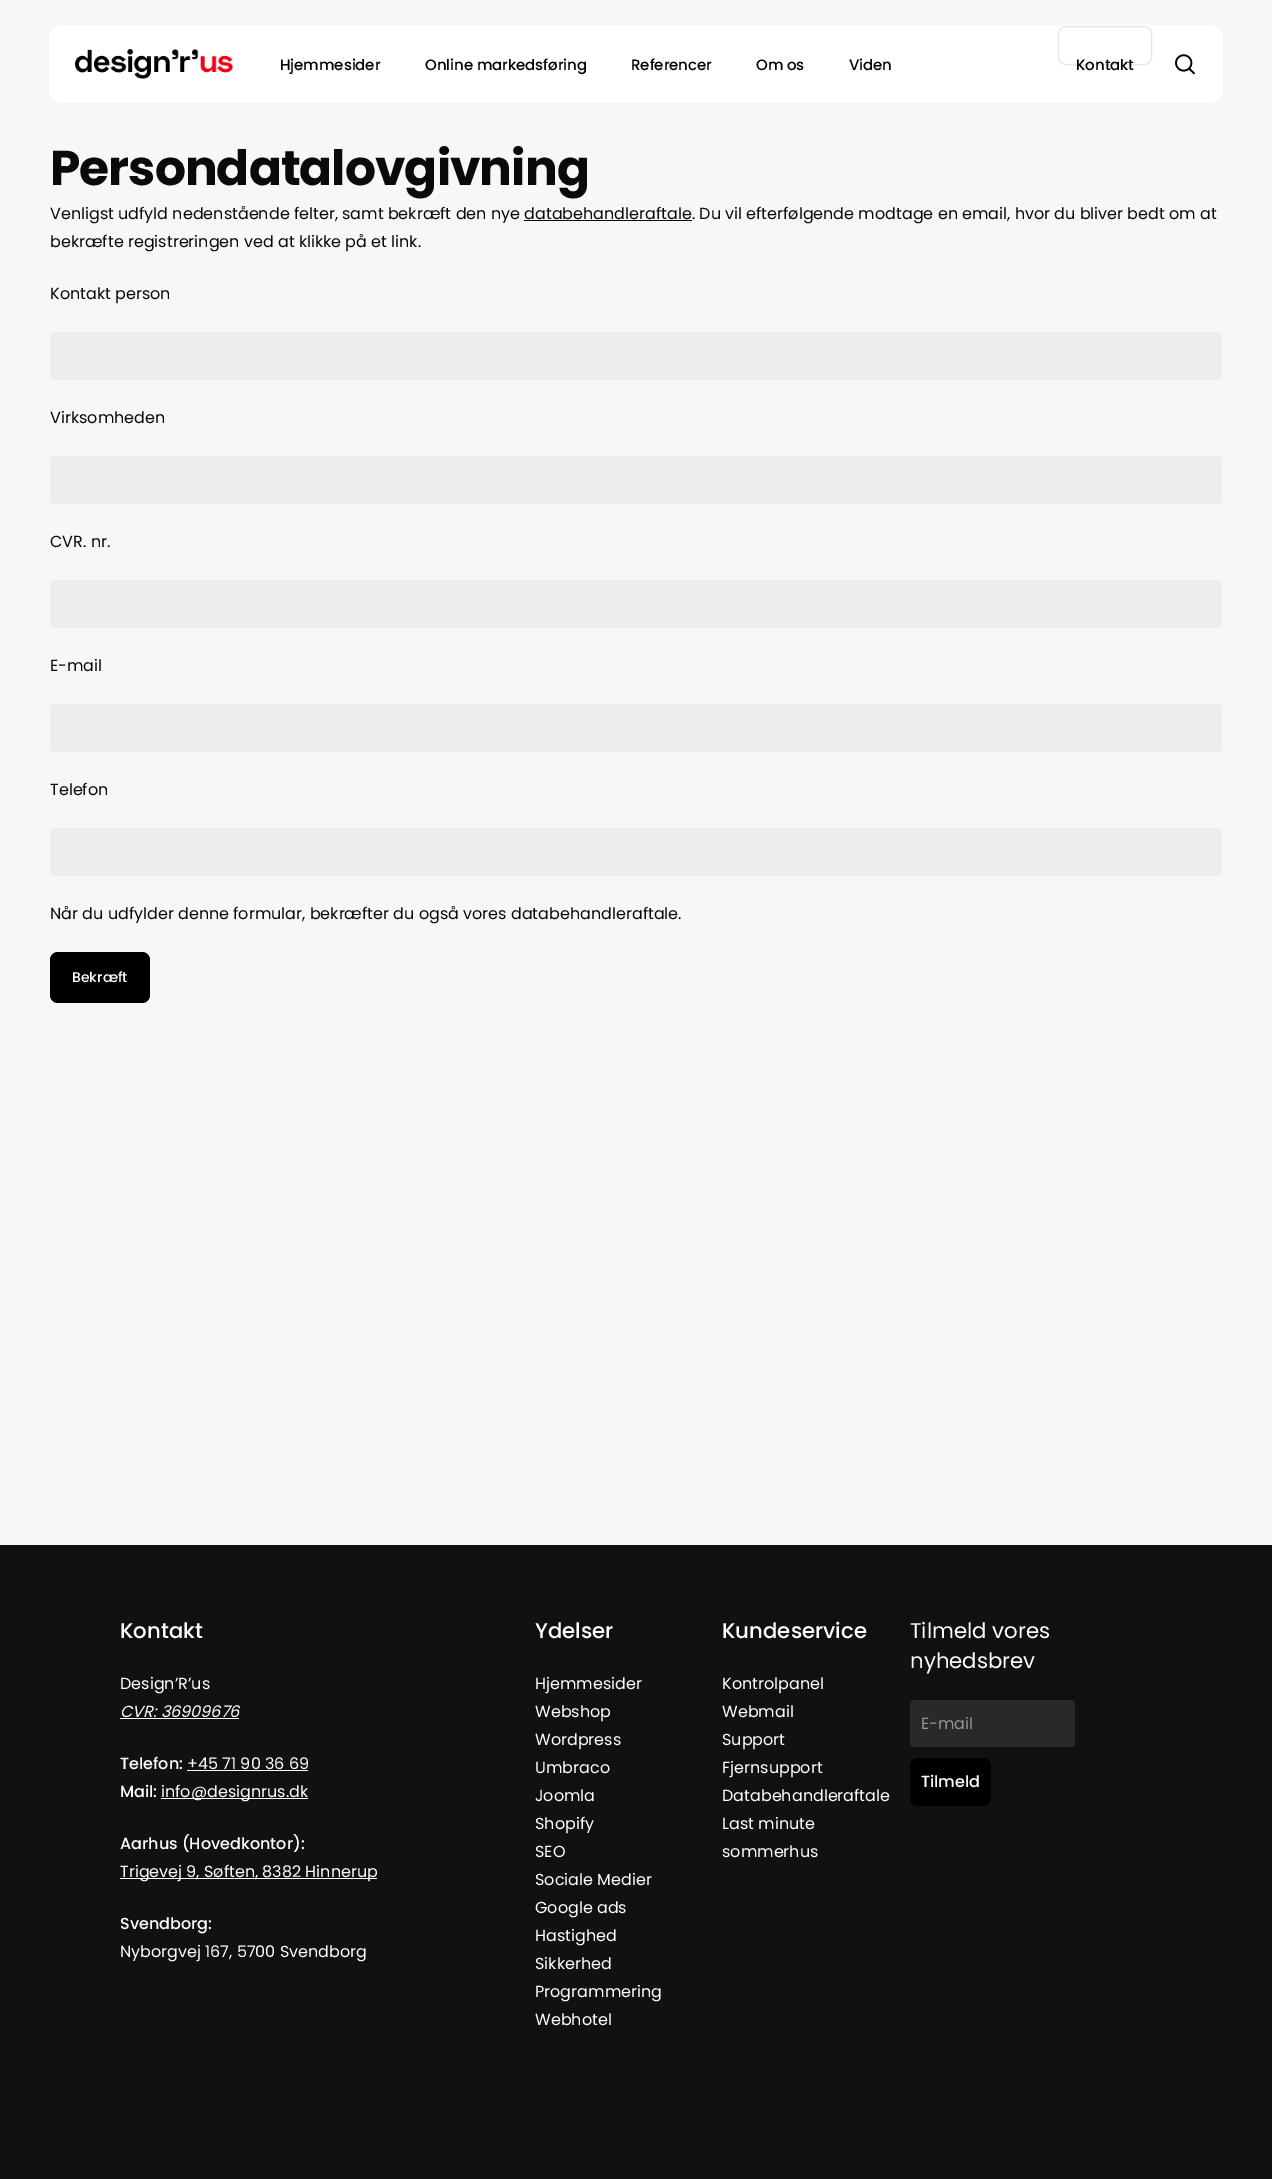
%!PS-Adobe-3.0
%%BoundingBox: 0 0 1272 2179
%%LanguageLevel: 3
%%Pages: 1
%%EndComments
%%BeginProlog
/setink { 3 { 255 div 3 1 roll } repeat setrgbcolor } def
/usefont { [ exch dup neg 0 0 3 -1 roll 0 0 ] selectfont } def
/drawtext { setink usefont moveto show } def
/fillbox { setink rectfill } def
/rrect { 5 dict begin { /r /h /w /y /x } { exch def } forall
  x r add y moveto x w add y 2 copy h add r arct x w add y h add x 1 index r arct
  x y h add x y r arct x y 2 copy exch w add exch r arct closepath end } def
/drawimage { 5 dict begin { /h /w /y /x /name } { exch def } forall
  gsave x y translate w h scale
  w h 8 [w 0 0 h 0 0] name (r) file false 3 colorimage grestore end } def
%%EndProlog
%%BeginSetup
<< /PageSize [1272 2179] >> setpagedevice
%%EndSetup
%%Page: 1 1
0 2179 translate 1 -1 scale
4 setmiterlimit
0 0 1272 2179 247 247 247 fillbox
255 255 255 setink
50 25 1172 78 10 rrect fill
(assets/img1.rgb) 75 49 158 30 drawimage
/Poppins-Medium 15 usefont
0 0 0 setink
280 70 moveto -0.1 0 (Hjemmesider) ashow
425 70 moveto -0.1 0 (Online markedsføring) ashow
631 70 moveto -0.1 0 (Referencer) ashow
756 70 moveto -0.1 0 (Om os) ashow
849 70 moveto -0.1 0 (Viden) ashow
230 230 230 setink
1058.5 26.5 93 38 7.5 rrect stroke
0 0 0 setink
1076 70 moveto -0.1 0 (Kontakt) ashow
(assets/img2.rgb) 1175 54 20 21 drawimage
/Poppins-Bold 48.75 usefont
10 10 10 setink
50 185 moveto -1 0 (Persondatalovgivning) ashow
(Venligst udfyld nedenstående felter, samt bekræft den nye databehandleraftale. Du vil efterfølgende modtage en email, hvor du bliver bedt om at) 50 219 /Poppins-Regular 16 10 10 10 drawtext
524 220 168 1 10 10 10 fillbox
(bekræfte registreringen ved at klikke på et link.) 50 247 /Poppins-Regular 16 10 10 10 drawtext
(Kontakt person) 50 299 /Poppins-Regular 16 10 10 10 drawtext
237 237 237 setink
50 332 1172 48 4 rrect fill
(Virksomheden) 50 423 /Poppins-Regular 16 10 10 10 drawtext
237 237 237 setink
50 456 1172 48 4 rrect fill
(CVR. nr.) 50 547 /Poppins-Regular 16 10 10 10 drawtext
237 237 237 setink
50 580 1172 48 4 rrect fill
(E-mail) 50 671 /Poppins-Regular 16 10 10 10 drawtext
237 237 237 setink
50 704 1172 48 4 rrect fill
(Telefon) 50 795 /Poppins-Regular 16 10 10 10 drawtext
237 237 237 setink
50 828 1172 48 4 rrect fill
(Når du udfylder denne formular, bekræfter du også vores databehandleraftale.) 50 919 /Poppins-Regular 16 10 10 10 drawtext
0 0 0 setink
50 952 100 51 8 rrect fill
(Bekræft) 72 982 /Poppins-Medium 14 255 255 255 drawtext
0 1545 1272 634 17 17 17 fillbox
(Kontakt) 120 1638 /Poppins-Medium 21.25 255 255 255 drawtext
(Design’R’us) 120 1689 /Poppins-Regular 16 255 255 255 drawtext
(CVR: 36909676) 120 1717 /Poppins-Italic 16 255 255 255 drawtext
120 1718 119 1 255 255 255 fillbox
(Telefon:) 120 1769 /Poppins-Medium 16 255 255 255 drawtext
(+45 71 90 36 69) 187 1769 /Poppins-Regular 16 255 255 255 drawtext
187 1770 121 1 255 255 255 fillbox
(Mail:) 120 1797 /Poppins-Medium 16 255 255 255 drawtext
161 1798 147 1 255 255 255 fillbox
(info@designrus.dk) 161 1797 /Poppins-Regular 16 255 255 255 drawtext
(Aarhus \(Hovedkontor\):) 120 1849 /Poppins-Medium 16 255 255 255 drawtext
120 1878 257 1 255 255 255 fillbox
(Trigevej 9, Søften, 8382 Hinnerup) 120 1877 /Poppins-Regular 16 255 255 255 drawtext
(Svendborg:) 120 1929 /Poppins-Medium 16 255 255 255 drawtext
(Nyborgvej 167, 5700 Svendborg) 120 1957 /Poppins-Regular 16 255 255 255 drawtext
(Ydelser) 535 1638 /Poppins-Medium 21.25 255 255 255 drawtext
(Hjemmesider) 535 1689 /Poppins-Regular 16 255 255 255 drawtext
(Webshop) 535 1717 /Poppins-Regular 16 255 255 255 drawtext
(Wordpress) 535 1745 /Poppins-Regular 16 255 255 255 drawtext
(Umbraco) 535 1773 /Poppins-Regular 16 255 255 255 drawtext
(Joomla) 535 1801 /Poppins-Regular 16 255 255 255 drawtext
(Shopify) 535 1829 /Poppins-Regular 16 255 255 255 drawtext
(SEO) 535 1857 /Poppins-Regular 16 255 255 255 drawtext
(Sociale Medier) 535 1885 /Poppins-Regular 16 255 255 255 drawtext
(Google ads) 535 1913 /Poppins-Regular 16 255 255 255 drawtext
(Hastighed) 535 1941 /Poppins-Regular 16 255 255 255 drawtext
(Sikkerhed) 535 1969 /Poppins-Regular 16 255 255 255 drawtext
(Programmering) 535 1997 /Poppins-Regular 16 255 255 255 drawtext
(Webhotel) 535 2025 /Poppins-Regular 16 255 255 255 drawtext
(Kundeservice) 722 1638 /Poppins-Medium 21.25 255 255 255 drawtext
(Kontrolpanel) 722 1689 /Poppins-Regular 16 255 255 255 drawtext
(Webmail) 722 1717 /Poppins-Regular 16 255 255 255 drawtext
(Support) 722 1745 /Poppins-Regular 16 255 255 255 drawtext
(Fjernsupport) 722 1773 /Poppins-Regular 16 255 255 255 drawtext
(Databehandleraftale) 722 1801 /Poppins-Regular 16 255 255 255 drawtext
(Last minute) 722 1829 /Poppins-Regular 16 255 255 255 drawtext
(sommerhus) 722 1857 /Poppins-Regular 16 255 255 255 drawtext
(Tilmeld vores) 910 1638 /Poppins-Regular 21.25 255 255 255 drawtext
(nyhedsbrev) 910 1668 /Poppins-Regular 21.25 255 255 255 drawtext
41 41 41 setink
910 1700 165 47 4 rrect fill
(E-mail) 921 1729 /Poppins-Regular 16 148 148 148 drawtext
0 0 0 setink
910 1758 81 48 8 rrect fill
(Tilmeld) 921 1787 /Poppins-Medium 16 255 255 255 drawtext
showpage
%%EOF
